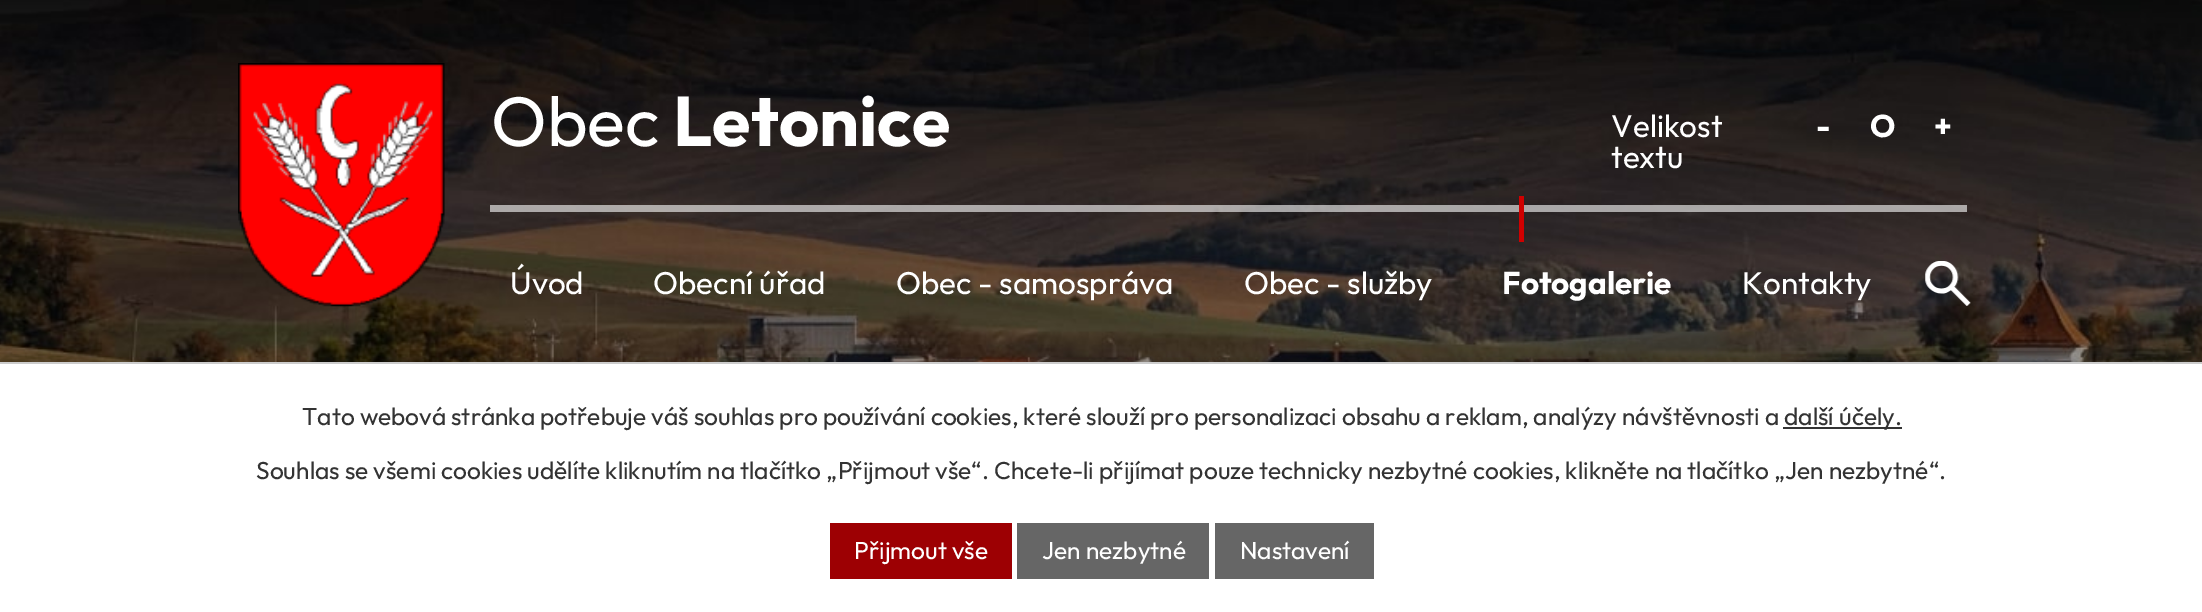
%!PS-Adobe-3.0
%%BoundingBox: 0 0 2202 612
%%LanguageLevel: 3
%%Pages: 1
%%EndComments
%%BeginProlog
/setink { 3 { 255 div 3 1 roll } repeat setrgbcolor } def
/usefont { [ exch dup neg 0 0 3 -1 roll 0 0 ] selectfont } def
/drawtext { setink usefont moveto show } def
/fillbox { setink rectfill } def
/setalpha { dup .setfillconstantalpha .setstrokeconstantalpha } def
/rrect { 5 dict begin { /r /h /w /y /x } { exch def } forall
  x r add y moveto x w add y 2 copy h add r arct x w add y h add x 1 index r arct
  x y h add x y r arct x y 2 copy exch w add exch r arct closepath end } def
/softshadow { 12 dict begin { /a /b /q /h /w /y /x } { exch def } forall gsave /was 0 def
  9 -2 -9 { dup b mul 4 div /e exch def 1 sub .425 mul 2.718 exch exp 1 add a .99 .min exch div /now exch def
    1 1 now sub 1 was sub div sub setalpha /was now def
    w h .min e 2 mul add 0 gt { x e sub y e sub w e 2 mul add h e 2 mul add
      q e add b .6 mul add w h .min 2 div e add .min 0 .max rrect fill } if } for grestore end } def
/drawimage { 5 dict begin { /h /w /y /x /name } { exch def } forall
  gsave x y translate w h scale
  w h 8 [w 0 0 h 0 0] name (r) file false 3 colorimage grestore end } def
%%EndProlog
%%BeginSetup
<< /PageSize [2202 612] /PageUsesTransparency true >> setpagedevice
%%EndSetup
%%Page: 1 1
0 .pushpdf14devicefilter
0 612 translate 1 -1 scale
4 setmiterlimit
0 0 2202 612 255 255 255 fillbox
(assets/img1.rgb) 0 0 2202 362 drawimage
(assets/img2.rgb) 238 63 207 244 drawimage
(Obec) 491 146 /Outfit-Regular 70 255 255 255 drawtext
(Letonice) 673 146 /Outfit-Bold 70 255 255 255 drawtext
(Velikost) 1611 137 /Outfit-Regular 31.5 255 255 255 drawtext
(textu) 1611 168 /Outfit-Regular 31.5 255 255 255 drawtext
(-) 1816 137 /Outfit-Bold 31.5 255 255 255 drawtext
(O) 1870 137 /Outfit-Bold 31.5 255 255 255 drawtext
(+) 1934 137 /Outfit-Bold 31.5 255 255 255 drawtext
(assets/img3.rgb) 1925 261 46 45 drawimage
0.6 setalpha
490 205 1477 7 255 255 255 fillbox
1 setalpha
(Úvod) 510 294 /Outfit-Regular 31.5 255 255 255 drawtext
(Obecní úřad) 653 294 /Outfit-Regular 31.5 255 255 255 drawtext
(Obec - samospráva) 896 294 /Outfit-Regular 31.5 255 255 255 drawtext
(Obec - služby) 1244 294 /Outfit-Regular 31.5 255 255 255 drawtext
1519 196 5 46 208 0 0 fillbox
(Fotogalerie) 1502 294 /Outfit-Bold 31.5 255 255 255 drawtext
(Kontakty) 1742 294 /Outfit-Regular 31.5 255 255 255 drawtext
0 0 0 setink
0 362 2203 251 0 4.5 0.2 softshadow
0 364 2202 248 255 255 255 fillbox
0 362 2202 2 204 204 204 fillbox
(Tato webová stránka potřebuje váš souhlas pro používání cookies, které slouží pro personalizaci obsahu a reklam, analýzy návštěvnosti a) 302 425 /Outfit-Regular 24.5 51 51 51 drawtext
1783 427 119 2 51 51 51 fillbox
(další účely.) 1784 425 /Outfit-Regular 24.5 51 51 51 drawtext
(Souhlas se všemi cookies udělíte kliknutím na tlačítko „Přijmout vše“. Chcete-li přijímat pouze technicky nezbytné cookies, klikněte na tlačítko „Jen nezbytné“.) 256 479 /Outfit-Regular 24.5 51 51 51 drawtext
830 523 182 56 157 0 3 fillbox
(Přijmout vše) 854 559 /Outfit-Regular 24.5 255 255 255 drawtext
1017 523 192 56 102 102 102 fillbox
(Jen nezbytné) 1042 559 /Outfit-Regular 24.5 255 255 255 drawtext
1215 523 159 56 102 102 102 fillbox
(Nastavení) 1240 559 /Outfit-Regular 24.5 255 255 255 drawtext
.poppdf14devicefilter showpage
%%EOF
